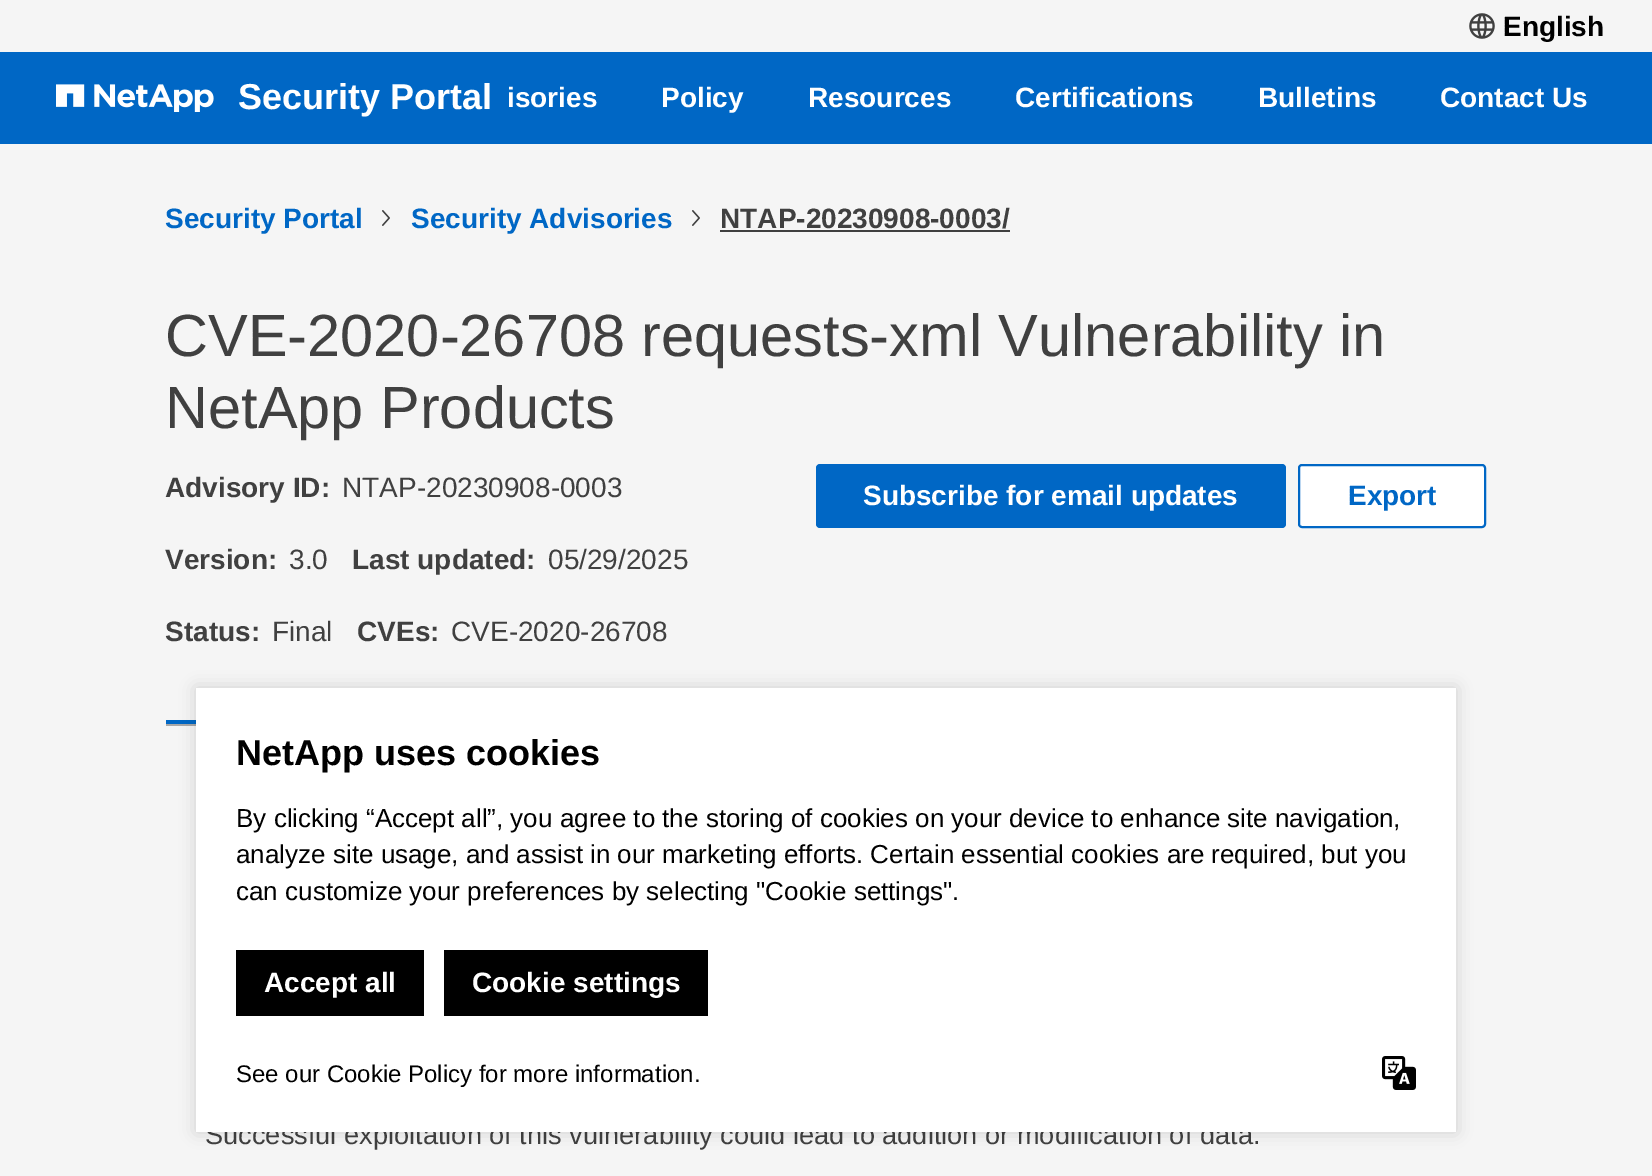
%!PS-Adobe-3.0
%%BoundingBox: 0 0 1652 1176
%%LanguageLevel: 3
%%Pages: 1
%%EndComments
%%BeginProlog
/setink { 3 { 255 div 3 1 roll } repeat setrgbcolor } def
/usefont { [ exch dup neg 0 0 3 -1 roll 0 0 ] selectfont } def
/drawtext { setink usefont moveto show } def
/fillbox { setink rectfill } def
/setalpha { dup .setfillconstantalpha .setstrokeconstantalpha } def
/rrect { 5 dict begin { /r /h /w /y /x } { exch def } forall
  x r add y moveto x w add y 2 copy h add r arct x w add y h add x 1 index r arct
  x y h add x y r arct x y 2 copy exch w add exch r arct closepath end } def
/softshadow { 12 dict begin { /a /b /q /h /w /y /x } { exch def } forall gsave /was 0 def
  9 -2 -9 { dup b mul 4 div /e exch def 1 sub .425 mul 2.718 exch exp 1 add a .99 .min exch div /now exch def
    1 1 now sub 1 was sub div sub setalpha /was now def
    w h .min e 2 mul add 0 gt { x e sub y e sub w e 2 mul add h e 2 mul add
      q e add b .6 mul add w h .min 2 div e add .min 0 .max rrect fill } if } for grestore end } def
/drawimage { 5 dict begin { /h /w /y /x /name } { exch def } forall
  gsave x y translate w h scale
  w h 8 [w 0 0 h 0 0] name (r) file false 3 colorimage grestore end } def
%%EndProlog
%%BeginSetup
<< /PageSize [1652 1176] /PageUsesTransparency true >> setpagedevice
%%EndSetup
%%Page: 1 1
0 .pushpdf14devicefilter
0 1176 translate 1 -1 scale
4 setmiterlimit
0 0 1652 1176 245 245 245 fillbox
(assets/img1.rgb) 1469 13 26 26 drawimage
(English) 1503 36 /LiberationSans-Bold 28 0 0 0 drawtext
0 52 1652 92 0 103 197 fillbox
(assets/img2.rgb) 56 84 158 28 drawimage
(Security Portal) 238 109 /LiberationSans-Bold 36 255 255 255 drawtext
(isories) 507 107 /LiberationSans-Bold 28 255 255 255 drawtext
(Policy) 661 107 /LiberationSans-Bold 28 255 255 255 drawtext
(Resources) 808 107 /LiberationSans-Bold 28 255 255 255 drawtext
(Certifications) 1015 107 /LiberationSans-Bold 28 255 255 255 drawtext
(Bulletins) 1258 107 /LiberationSans-Bold 28 255 255 255 drawtext
(Contact Us) 1440 107 /LiberationSans-Bold 28 255 255 255 drawtext
(Security Portal) 165 228 /LiberationSans-Bold 28 0 103 197 drawtext
(assets/img3.rgb) 382 210 8 16 drawimage
(Security Advisories) 411 228 /LiberationSans-Bold 28 0 103 197 drawtext
(assets/img3.rgb) 692 210 8 16 drawimage
(NTAP-20230908-0003/) 720 228 /LiberationSans-Bold 28 64 64 64 drawtext
720 230 290 2 64 64 64 fillbox
(CVE-2020-26708 requests-xml Vulnerability in) 165 356 /LiberationSans-Regular 59.5 64 64 64 drawtext
(NetApp Products) 165 428 /LiberationSans-Regular 59.5 64 64 64 drawtext
(Advisory ID:) 165 497 /LiberationSans-Bold 28 64 64 64 drawtext
(NTAP-20230908-0003) 342 497 /LiberationSans-Regular 28 64 64 64 drawtext
(Version:) 165 569 /LiberationSans-Bold 28 64 64 64 drawtext
(3.0) 289 569 /LiberationSans-Regular 28 64 64 64 drawtext
(Last updated:) 352 569 /LiberationSans-Bold 28 64 64 64 drawtext
(05/29/2025) 548 569 /LiberationSans-Regular 28 64 64 64 drawtext
(Status:) 165 641 /LiberationSans-Bold 28 64 64 64 drawtext
(Final) 272 641 /LiberationSans-Regular 28 64 64 64 drawtext
(CVEs:) 357 641 /LiberationSans-Bold 28 64 64 64 drawtext
(CVE-2020-26708) 451 641 /LiberationSans-Regular 28 64 64 64 drawtext
0 103 197 setink
816 464 470 64 4 rrect fill
(Subscribe for email updates) 863 505 /LiberationSans-Bold 28 255 255 255 drawtext
1299 465 186 62 3 rrect gsave fill grestore
0 103 197 setink
2 setlinewidth
stroke
(Export) 1348 505 /LiberationSans-Bold 28 0 103 197 drawtext
166 724 30 2 167 167 167 fillbox
166 720 30 4 0 103 197 fillbox
(Successful exploitation of this vulnerability could lead to addition or modification of data.) 205 1144 /LiberationSans-Regular 27.2 64 64 64 drawtext
0 0 0 setink
196 688 1260 444 0 8 0.15 softshadow
196 688 1260 444 255 255 255 fillbox
(NetApp uses cookies) 236 765 /LiberationSans-Bold 36 0 0 0 drawtext
(By clicking “Accept all”, you agree to the storing of cookies on your device to enhance site navigation,) 236 827 /LiberationSans-Regular 26 0 0 0 drawtext
(analyze site usage, and assist in our marketing efforts. Certain essential cookies are required, but you) 236 863 /LiberationSans-Regular 26 0 0 0 drawtext
(can customize your preferences by selecting "Cookie settings".) 236 900 /LiberationSans-Regular 26 0 0 0 drawtext
236 950 188 66 0 0 0 fillbox
(Accept all) 264 992 /LiberationSans-Bold 28 255 255 255 drawtext
444 950 264 66 0 0 0 fillbox
(Cookie settings) 472 992 /LiberationSans-Bold 28 255 255 255 drawtext
(See our Cookie Policy for more information.) 236 1082 /LiberationSans-Regular 24 0 0 0 drawtext
(assets/img4.rgb) 1382 1056 34 34 drawimage
.poppdf14devicefilter showpage
%%EOF
